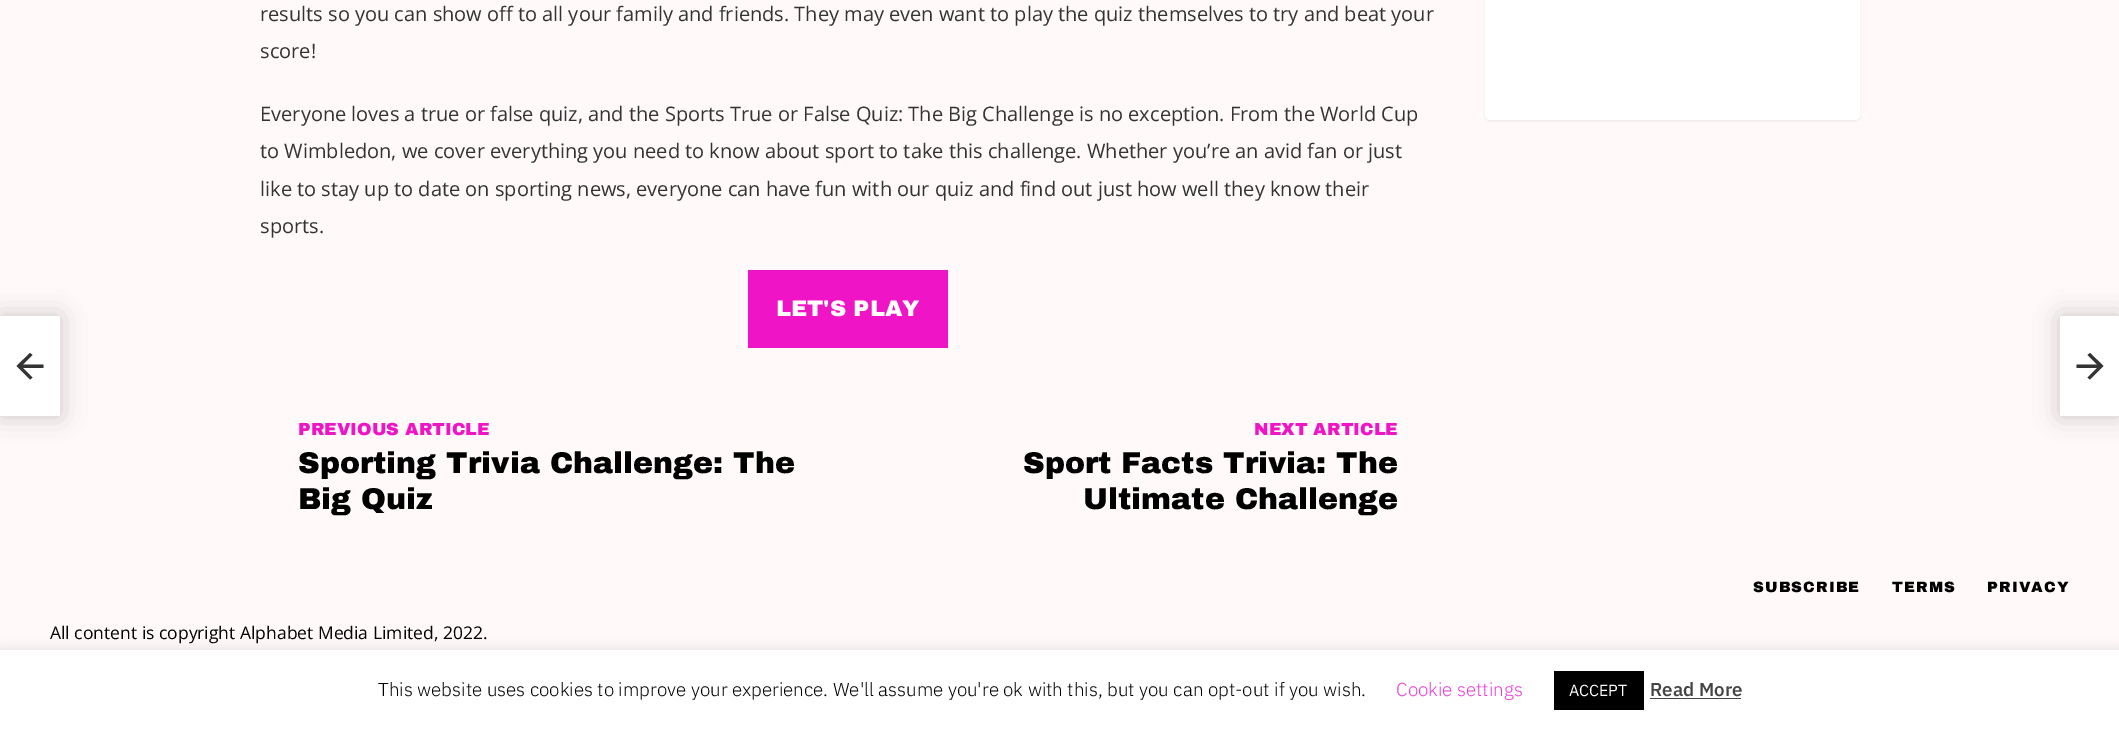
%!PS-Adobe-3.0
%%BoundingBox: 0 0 2119 731
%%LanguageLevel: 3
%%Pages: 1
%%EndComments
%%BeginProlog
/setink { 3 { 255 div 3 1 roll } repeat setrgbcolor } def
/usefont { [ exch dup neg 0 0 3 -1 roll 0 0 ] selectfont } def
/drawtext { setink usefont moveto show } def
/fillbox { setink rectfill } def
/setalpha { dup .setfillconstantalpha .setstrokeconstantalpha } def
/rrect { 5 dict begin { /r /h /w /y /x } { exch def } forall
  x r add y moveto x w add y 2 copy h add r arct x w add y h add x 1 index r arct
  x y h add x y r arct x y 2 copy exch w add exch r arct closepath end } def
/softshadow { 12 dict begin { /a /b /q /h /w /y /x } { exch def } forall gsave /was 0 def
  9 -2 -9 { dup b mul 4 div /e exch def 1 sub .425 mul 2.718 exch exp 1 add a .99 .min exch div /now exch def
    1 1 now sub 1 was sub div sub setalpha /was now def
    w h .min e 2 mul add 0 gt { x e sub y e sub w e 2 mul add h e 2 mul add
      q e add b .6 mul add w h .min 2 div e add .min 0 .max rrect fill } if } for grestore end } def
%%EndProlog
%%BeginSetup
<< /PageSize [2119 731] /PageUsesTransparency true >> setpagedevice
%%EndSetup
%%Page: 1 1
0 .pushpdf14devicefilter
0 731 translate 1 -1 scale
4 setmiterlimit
0 0 2119 731 255 249 249 fillbox
0 0 0 setink
0 316 60 100 0 12.5 0.2 softshadow
0 316 60 100 255 255 255 fillbox
51 51 51 setink
43.5 364.5 moveto 23 364.5 lineto 32.5 355 lineto 30 353 lineto 16.5 366 lineto 30 379.5 lineto 32.5 377.5 lineto 23 368 lineto 43.5 368 lineto closepath fill
(results so you can show off to all your family and friends. They may even want to play the quiz themselves to try and beat your) 260 21 /OpenSans-Regular 20 51 51 51 drawtext
(score!) 260 58 /OpenSans-Regular 20 51 51 51 drawtext
(Everyone loves a true or false quiz, and the Sports True or False Quiz: The Big Challenge is no exception. From the World Cup) 260 121 /OpenSans-Regular 20 51 51 51 drawtext
(to Wimbledon, we cover everything you need to know about sport to take this challenge. Whether you’re an avid fan or just) 260 158 /OpenSans-Regular 20 51 51 51 drawtext
(like to stay up to date on sporting news, everyone can have fun with our quiz and find out just how well they know their) 260 196 /OpenSans-Regular 20 51 51 51 drawtext
(sports.) 260 233 /OpenSans-Regular 20 51 51 51 drawtext
748 270 200 78 239 20 197 fillbox
(LET'S PLAY) 776 316 /ArchivoBlack-Black 22.5 255 255 255 drawtext
(PREVIOUS ARTICLE) 298 435 /ArchivoBlack-Black 17.5 239 20 197 drawtext
(Sporting Trivia Challenge: The) 298 473 /ArchivoBlack-Black 30 0 0 0 drawtext
(Big Quiz) 298 509 /ArchivoBlack-Black 30 0 0 0 drawtext
(NEXT ARTICLE) 1254 435 /ArchivoBlack-Black 17.5 239 20 197 drawtext
(Sport Facts Trivia: The) 1023 473 /ArchivoBlack-Black 30 0 0 0 drawtext
(Ultimate Challenge) 1083 509 /ArchivoBlack-Black 30 0 0 0 drawtext
2060 316 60 100 0 12.5 0.2 softshadow
2060 316 59 100 255 255 255 fillbox
51 51 51 setink
2076.5 368 moveto 2097 368 lineto 2087.5 377.5 lineto 2090 379.5 lineto 2103.5 366 lineto 2090 353 lineto 2087.5 355 lineto 2097 364.5 lineto 2076.5 364.5 lineto closepath fill
0 0 0 setink
1485 -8 375 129 5 1 0.07 softshadow
255 255 255 setink
1485 -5 375 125 5 rrect fill
/ArchivoBlack-Black 15 usefont
0 0 0 setink
1753 592 moveto 1.1 0 (SUBSCRIBE) ashow
1892 592 moveto 1.1 0 (TERMS) ashow
1987 592 moveto 1.1 0 (PRIVACY) ashow
(All content is copyright Alphabet Media Limited, 2022.) 50 639 /OpenSans-Regular 17.5 0 0 0 drawtext
172 171 171 setink
0 649 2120 81 0 6 0.3 softshadow
0 650 2119 81 255 255 255 fillbox
(This website uses cookies to improve your experience. We'll assume you're ok with this, but you can opt-out if you wish.) 378 696 /IBMPlexSans-Light 18.75 0 0 0 drawtext
(Cookie settings) 1396 696 /IBMPlexSans-Light 18.75 234 58 219 drawtext
1554 671 90 39 0 0 0 fillbox
(ACCEPT) 1569 696 /IBMPlexSans-Regular 16 255 255 255 drawtext
(Read More) 1650 696 /IBMPlexSans-Medium 18.75 68 68 68 drawtext
1650 698 91 1 68 68 68 fillbox
.poppdf14devicefilter showpage
%%EOF
